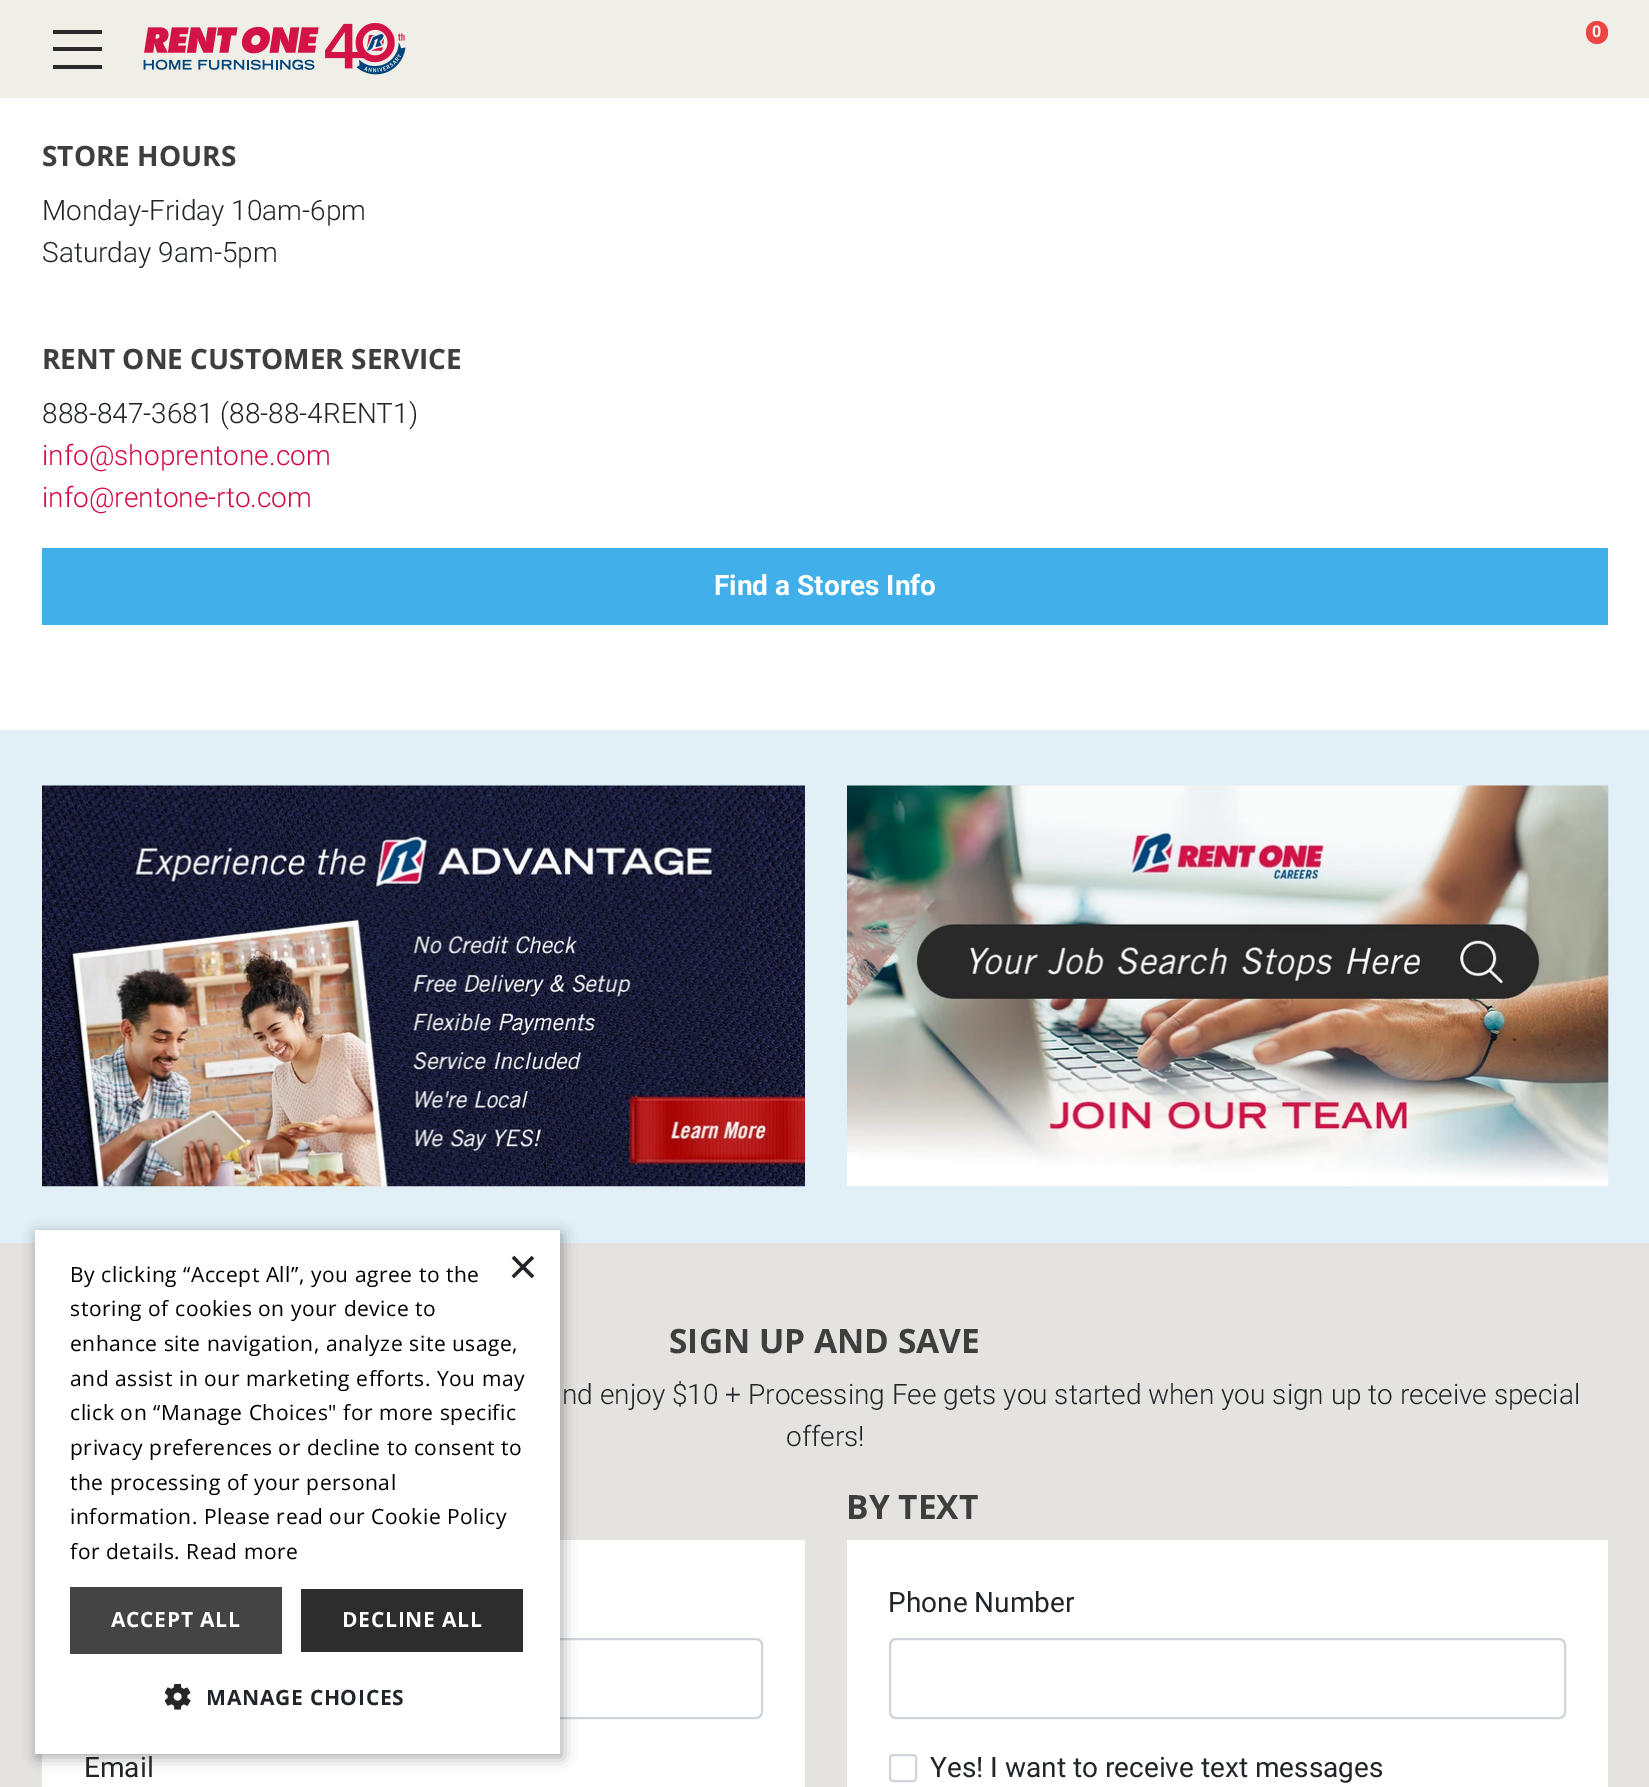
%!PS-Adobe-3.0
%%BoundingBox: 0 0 1649 1787
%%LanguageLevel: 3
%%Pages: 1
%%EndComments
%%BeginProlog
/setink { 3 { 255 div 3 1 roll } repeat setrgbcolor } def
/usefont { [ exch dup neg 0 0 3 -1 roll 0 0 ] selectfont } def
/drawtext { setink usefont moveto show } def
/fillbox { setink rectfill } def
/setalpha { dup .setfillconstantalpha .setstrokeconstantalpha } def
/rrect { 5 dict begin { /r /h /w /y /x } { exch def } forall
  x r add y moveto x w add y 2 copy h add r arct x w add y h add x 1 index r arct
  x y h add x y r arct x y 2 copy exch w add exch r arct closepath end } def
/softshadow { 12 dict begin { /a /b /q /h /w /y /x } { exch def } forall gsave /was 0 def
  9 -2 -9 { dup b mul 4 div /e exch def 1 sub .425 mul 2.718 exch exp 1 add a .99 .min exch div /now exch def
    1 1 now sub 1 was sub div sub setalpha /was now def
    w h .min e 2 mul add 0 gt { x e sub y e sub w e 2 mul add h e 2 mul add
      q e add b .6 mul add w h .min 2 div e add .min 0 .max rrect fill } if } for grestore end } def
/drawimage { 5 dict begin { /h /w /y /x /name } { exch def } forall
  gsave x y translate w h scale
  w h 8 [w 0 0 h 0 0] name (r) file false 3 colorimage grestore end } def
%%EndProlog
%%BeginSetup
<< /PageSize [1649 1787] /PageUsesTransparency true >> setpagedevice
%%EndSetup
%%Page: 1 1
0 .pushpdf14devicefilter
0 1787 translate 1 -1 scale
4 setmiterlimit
0 0 1649 1787 255 255 255 fillbox
0 0 1649 98 239 238 231 fillbox
53 47 49 4 42 42 42 fillbox
53 30 49 4 42 42 42 fillbox
53 65 49 4 42 42 42 fillbox
(assets/img1.rgb) 143 22 263 53 drawimage
239 68 68 setink
1586 21 22 23 11 rrect fill
(0) 1592 37 /Roboto-Bold 16 255 255 255 drawtext
(STORE HOURS) 42 166 /OpenSans-Bold 28 62 62 62 drawtext
(Monday-Friday 10am-6pm) 42 220 /Roboto-Light 28 33 37 41 drawtext
(Saturday 9am-5pm) 42 262 /Roboto-Light 28 33 37 41 drawtext
(RENT ONE CUSTOMER SERVICE) 42 369 /OpenSans-Bold 28 62 62 62 drawtext
(888-847-3681 \(88-88-4RENT1\)) 42 423 /Roboto-Light 28 33 37 41 drawtext
(info@shoprentone.com) 42 465 /Roboto-Light 28 213 7 65 drawtext
(info@rentone-rto.com) 42 507 /Roboto-Light 28 213 7 65 drawtext
42 548 1566 77 65 176 234 fillbox
(Find a Stores Info) 714 595 /Roboto-Bold 28 255 255 255 drawtext
0 730 1649 513 225 239 246 fillbox
(assets/img2.rgb) 42 785 763 402 drawimage
(assets/img3.rgb) 847 785 762 402 drawimage
0 1243 1649 544 228 227 224 fillbox
42 1540 763 247 255 255 255 fillbox
206 212 218 setink
2 setlinewidth
439 1639 323 79 6 rrect stroke
0 0 0 setink
37 1234 525 523 0 7 0.35 softshadow
35 1230 525 524 255 255 255 fillbox
(×) 508 1284 /LiberationSans-Regular 51 33 37 41 drawtext
/OpenSans-Regular 21 usefont
0 0 0 setink
70 1282 moveto 0.55 0 (By clicking “Accept All”, you agree to the) ashow
70 1316 moveto 0.55 0 (storing of cookies on your device to) ashow
70 1351 moveto 0.55 0 (enhance site navigation, analyze site usage,) ashow
70 1386 moveto 0.55 0 (and assist in our marketing efforts. You may) ashow
70 1420 moveto 0.55 0 (click on “Manage Choices" for more specific) ashow
70 1455 moveto 0.55 0 (privacy preferences or decline to consent to) ashow
70 1490 moveto 0.55 0 (the processing of your personal) ashow
70 1524 moveto 0.55 0 (information. Please read our Cookie Policy) ashow
70 1559 moveto 0.55 0 (for details. Read more) ashow
70 1587 212 67 68 68 68 fillbox
/OpenSans-Bold 21 usefont
255 255 255 setink
111 1627 moveto 0.75 0 (ACCEPT ALL) ashow
301 1589 222 63 45 45 45 fillbox
255 255 255 setink
342 1627 moveto 0.75 0 (DECLINE ALL) ashow
(assets/img4.rgb) 165 1684 26 26 drawimage
33 37 41 setink
206 1705 moveto 0.75 0 (MANAGE CHOICES) ashow
(SIGN UP AND SAVE) 669 1353 /OpenSans-Bold 33.5 62 62 62 drawtext
(nd enjoy $10 + Processing Fee gets you started when you sign up to receive special) 562 1404 /Roboto-Light 28 33 37 41 drawtext
(offers!) 786 1446 /Roboto-Light 28 33 37 41 drawtext
(Email) 84 1777 /Roboto-Regular 28 33 37 41 drawtext
(BY TEXT) 846 1519 /OpenSans-Bold 33.5 62 62 62 drawtext
847 1540 761 247 255 255 255 fillbox
(Phone Number) 888 1612 /Roboto-Regular 28 33 37 41 drawtext
206 212 218 setink
890 1639 675 79 6 rrect stroke
890 1755 26 26 3 rrect stroke
(Yes! I want to receive text messages) 930 1777 /Roboto-Regular 28 33 37 41 drawtext
.poppdf14devicefilter showpage
%%EOF
